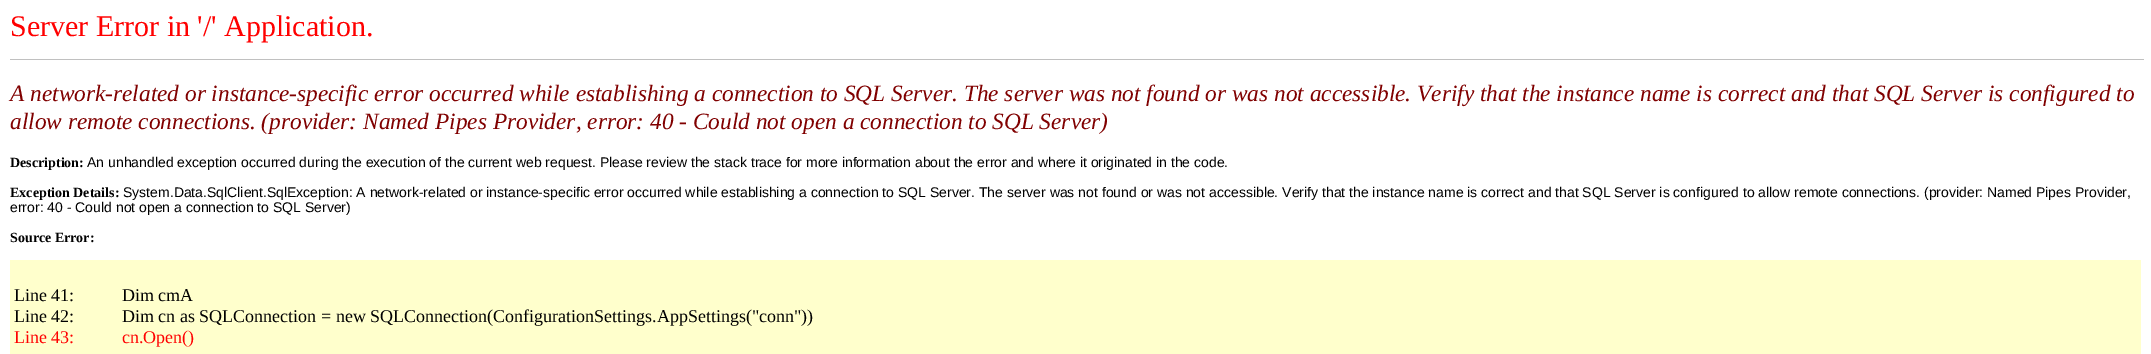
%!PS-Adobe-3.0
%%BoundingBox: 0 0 2151 354
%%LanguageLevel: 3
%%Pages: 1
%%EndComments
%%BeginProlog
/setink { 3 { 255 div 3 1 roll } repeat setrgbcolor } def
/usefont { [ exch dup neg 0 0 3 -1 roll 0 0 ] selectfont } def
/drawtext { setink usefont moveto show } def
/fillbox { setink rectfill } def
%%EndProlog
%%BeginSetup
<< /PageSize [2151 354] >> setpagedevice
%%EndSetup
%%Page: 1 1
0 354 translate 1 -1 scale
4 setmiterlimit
0 0 2151 354 255 255 255 fillbox
(Server Error in '/' Application.) 10 36 /LiberationSerif-Regular 30 255 0 0 drawtext
10 59 2134 1 192 192 192 fillbox
(A network-related or instance-specific error occurred while establishing a connection to SQL Server. The server was not found or was not accessible. Verify that the instance name is correct and that SQL Server is configured to) 10 101 /LiberationSerif-Italic 23.33 128 0 0 drawtext
(allow remote connections. \(provider: Named Pipes Provider, error: 40 - Could not open a connection to SQL Server\)) 10 129 /LiberationSerif-Italic 23.33 128 0 0 drawtext
(Description:) 10 167 /LiberationSerif-Bold 14 0 0 0 drawtext
(An unhandled exception occurred during the execution of the current web request. Please review the stack trace for more information about the error and where it originated in the code.) 87 167 /LiberationSans-Regular 14 0 0 0 drawtext
(Exception Details:) 10 197 /LiberationSerif-Bold 14 0 0 0 drawtext
(System.Data.SqlClient.SqlException: A network-related or instance-specific error occurred while establishing a connection to SQL Server. The server was not found or was not accessible. Verify that the instance name is correct and that SQL Server is configured to allow remote connections. \(provider: Named Pipes Provider,) 123 197 /LiberationSans-Regular 14 0 0 0 drawtext
(error: 40 - Could not open a connection to SQL Server\)) 10 212 /LiberationSans-Regular 14 0 0 0 drawtext
(Source Error:) 10 242 /LiberationSerif-Bold 14 0 0 0 drawtext
10 260 2131 94 255 255 204 fillbox
(Line 41:) 14 301 /LiberationSerif-Regular 18 0 0 0 drawtext
(Dim cmA) 122 301 /LiberationSerif-Regular 18 0 0 0 drawtext
(Line 42:) 14 322 /LiberationSerif-Regular 18 0 0 0 drawtext
(Dim cn as SQLConnection = new SQLConnection\(ConfigurationSettings.AppSettings\("conn"\)\)) 122 322 /LiberationSerif-Regular 18 0 0 0 drawtext
(Line 43:) 14 343 /LiberationSerif-Regular 18 255 0 0 drawtext
(cn.Open\(\)) 122 343 /LiberationSerif-Regular 18 255 0 0 drawtext
showpage
%%EOF
